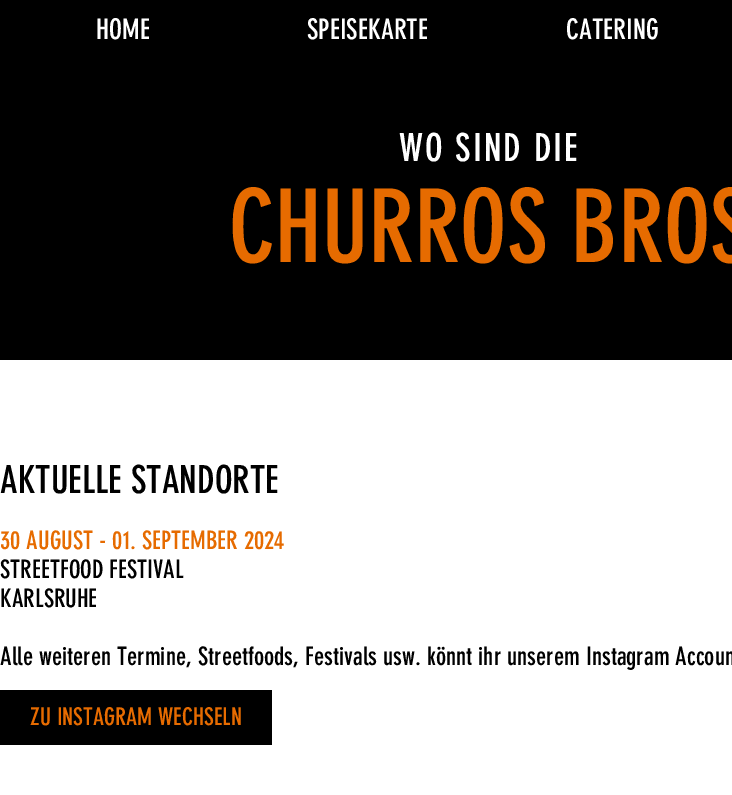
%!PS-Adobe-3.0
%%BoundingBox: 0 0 732 795
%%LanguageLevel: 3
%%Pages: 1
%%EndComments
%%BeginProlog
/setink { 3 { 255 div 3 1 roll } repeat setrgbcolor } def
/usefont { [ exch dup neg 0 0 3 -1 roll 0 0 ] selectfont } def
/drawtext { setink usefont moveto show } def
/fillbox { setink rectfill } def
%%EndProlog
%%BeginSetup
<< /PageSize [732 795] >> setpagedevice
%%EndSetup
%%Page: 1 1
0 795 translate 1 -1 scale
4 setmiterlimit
0 0 732 795 255 255 255 fillbox
0 0 732 360 0 0 0 fillbox
(HOME) 96 39 /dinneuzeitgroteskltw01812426-Regular 28 255 255 255 drawtext
(SPEISEKARTE) 307 39 /dinneuzeitgroteskltw01812426-Regular 28 255 255 255 drawtext
(CATERING) 566 39 /dinneuzeitgroteskltw01812426-Regular 28 255 255 255 drawtext
/dinneuzeitgroteskltw01812426-Regular 38 usefont
399 161 moveto 1.9 0 (WO SIND DIE) ashow
(CHURROS BROS) 229 262 /dinneuzeitgroteskltw01812426-Regular 100 230 107 0 drawtext
(AKTUELLE STANDORTE) 0 493 /dinneuzeitgroteskltw01812426-Regular 38 0 0 0 drawtext
(30 AUGUST - 01. SEPTEMBER 2024) 0 549 /dinneuzeitgroteskltw01812426-Regular 25 230 107 0 drawtext
(STREETFOOD FESTIVAL) 0 578 /dinneuzeitgroteskltw01812426-Regular 25 0 0 0 drawtext
(KARLSRUHE) 0 607 /dinneuzeitgroteskltw01812426-Regular 25 0 0 0 drawtext
(Alle weiteren Termine, Streetfoods, Festivals usw. könnt ihr unserem Instagram Accoun) 0 665 /dinneuzeitgroteskltw01812426-Regular 25 0 0 0 drawtext
0 690 272 55 0 0 0 fillbox
(ZU INSTAGRAM WECHSELN) 30 725 /dinneuzeitgroteskltw01812426-Regular 24 230 107 0 drawtext
showpage
%%EOF
